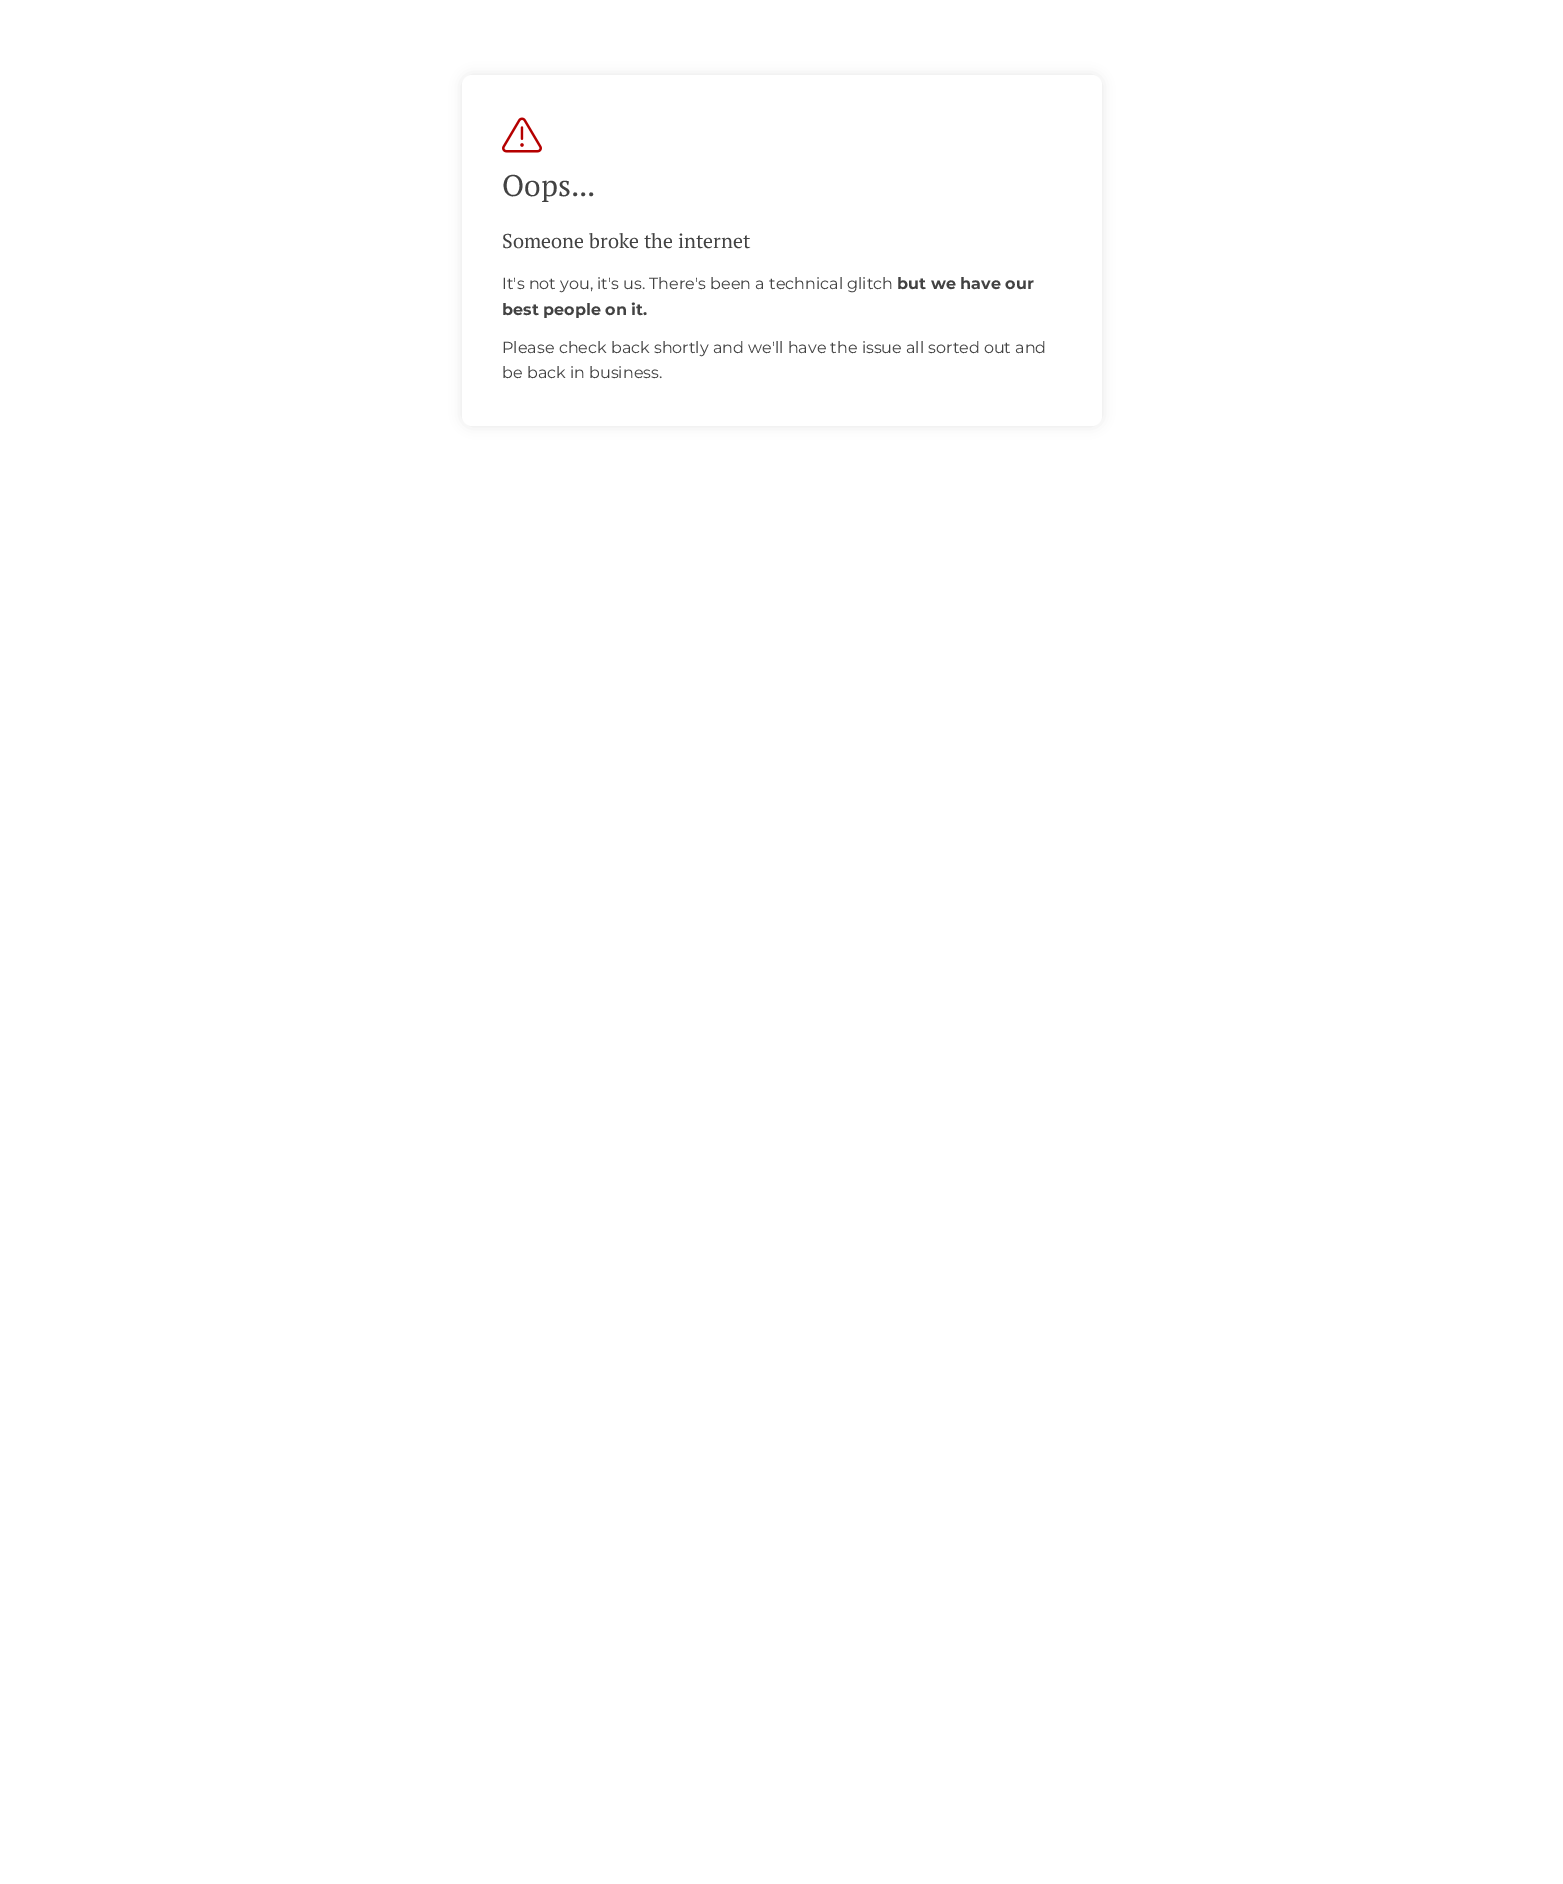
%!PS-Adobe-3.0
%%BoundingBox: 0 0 1563 1884
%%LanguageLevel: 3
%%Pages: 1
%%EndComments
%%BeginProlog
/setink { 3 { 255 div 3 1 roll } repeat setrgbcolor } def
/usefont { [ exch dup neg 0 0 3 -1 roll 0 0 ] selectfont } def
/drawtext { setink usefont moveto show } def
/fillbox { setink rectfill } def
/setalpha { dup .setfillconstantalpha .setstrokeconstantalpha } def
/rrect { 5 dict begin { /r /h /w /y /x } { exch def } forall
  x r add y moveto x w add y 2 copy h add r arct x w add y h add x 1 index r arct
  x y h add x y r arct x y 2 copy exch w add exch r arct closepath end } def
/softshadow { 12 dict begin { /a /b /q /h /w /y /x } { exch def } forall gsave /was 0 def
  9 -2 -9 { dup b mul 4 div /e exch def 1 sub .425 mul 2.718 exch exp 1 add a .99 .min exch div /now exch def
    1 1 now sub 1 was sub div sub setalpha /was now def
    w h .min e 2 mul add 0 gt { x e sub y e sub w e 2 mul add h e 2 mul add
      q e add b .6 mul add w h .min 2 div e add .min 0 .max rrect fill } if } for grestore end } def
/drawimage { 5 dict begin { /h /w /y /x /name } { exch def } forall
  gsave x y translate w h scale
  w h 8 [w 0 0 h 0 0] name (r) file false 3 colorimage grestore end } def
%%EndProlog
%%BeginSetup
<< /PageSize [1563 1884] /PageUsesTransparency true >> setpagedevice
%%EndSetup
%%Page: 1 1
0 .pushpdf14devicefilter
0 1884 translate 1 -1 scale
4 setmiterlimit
0 0 1563 1884 255 255 255 fillbox
0 0 0 setink
462 75 640 351 10 6 0.1 softshadow
255 255 255 setink
462 75 640 351 10 rrect fill
(assets/img1.rgb) 502 117 40 36 drawimage
(Oops...) 502 196 /PTSerif-Regular 30 66 66 66 drawtext
(Someone broke the internet) 502 248 /PTSerif-Regular 20 66 66 66 drawtext
(It's not you, it's us. There's been a technical glitch) 502 289 /Montserrat-Regular 16 66 66 66 drawtext
(but we have our) 897 289 /Montserrat-Bold 16 66 66 66 drawtext
(best people on it.) 502 315 /Montserrat-Bold 16 66 66 66 drawtext
(Please check back shortly and we'll have the issue all sorted out and) 502 353 /Montserrat-Regular 16 66 66 66 drawtext
(be back in business.) 502 378 /Montserrat-Regular 16 66 66 66 drawtext
.poppdf14devicefilter showpage
%%EOF
